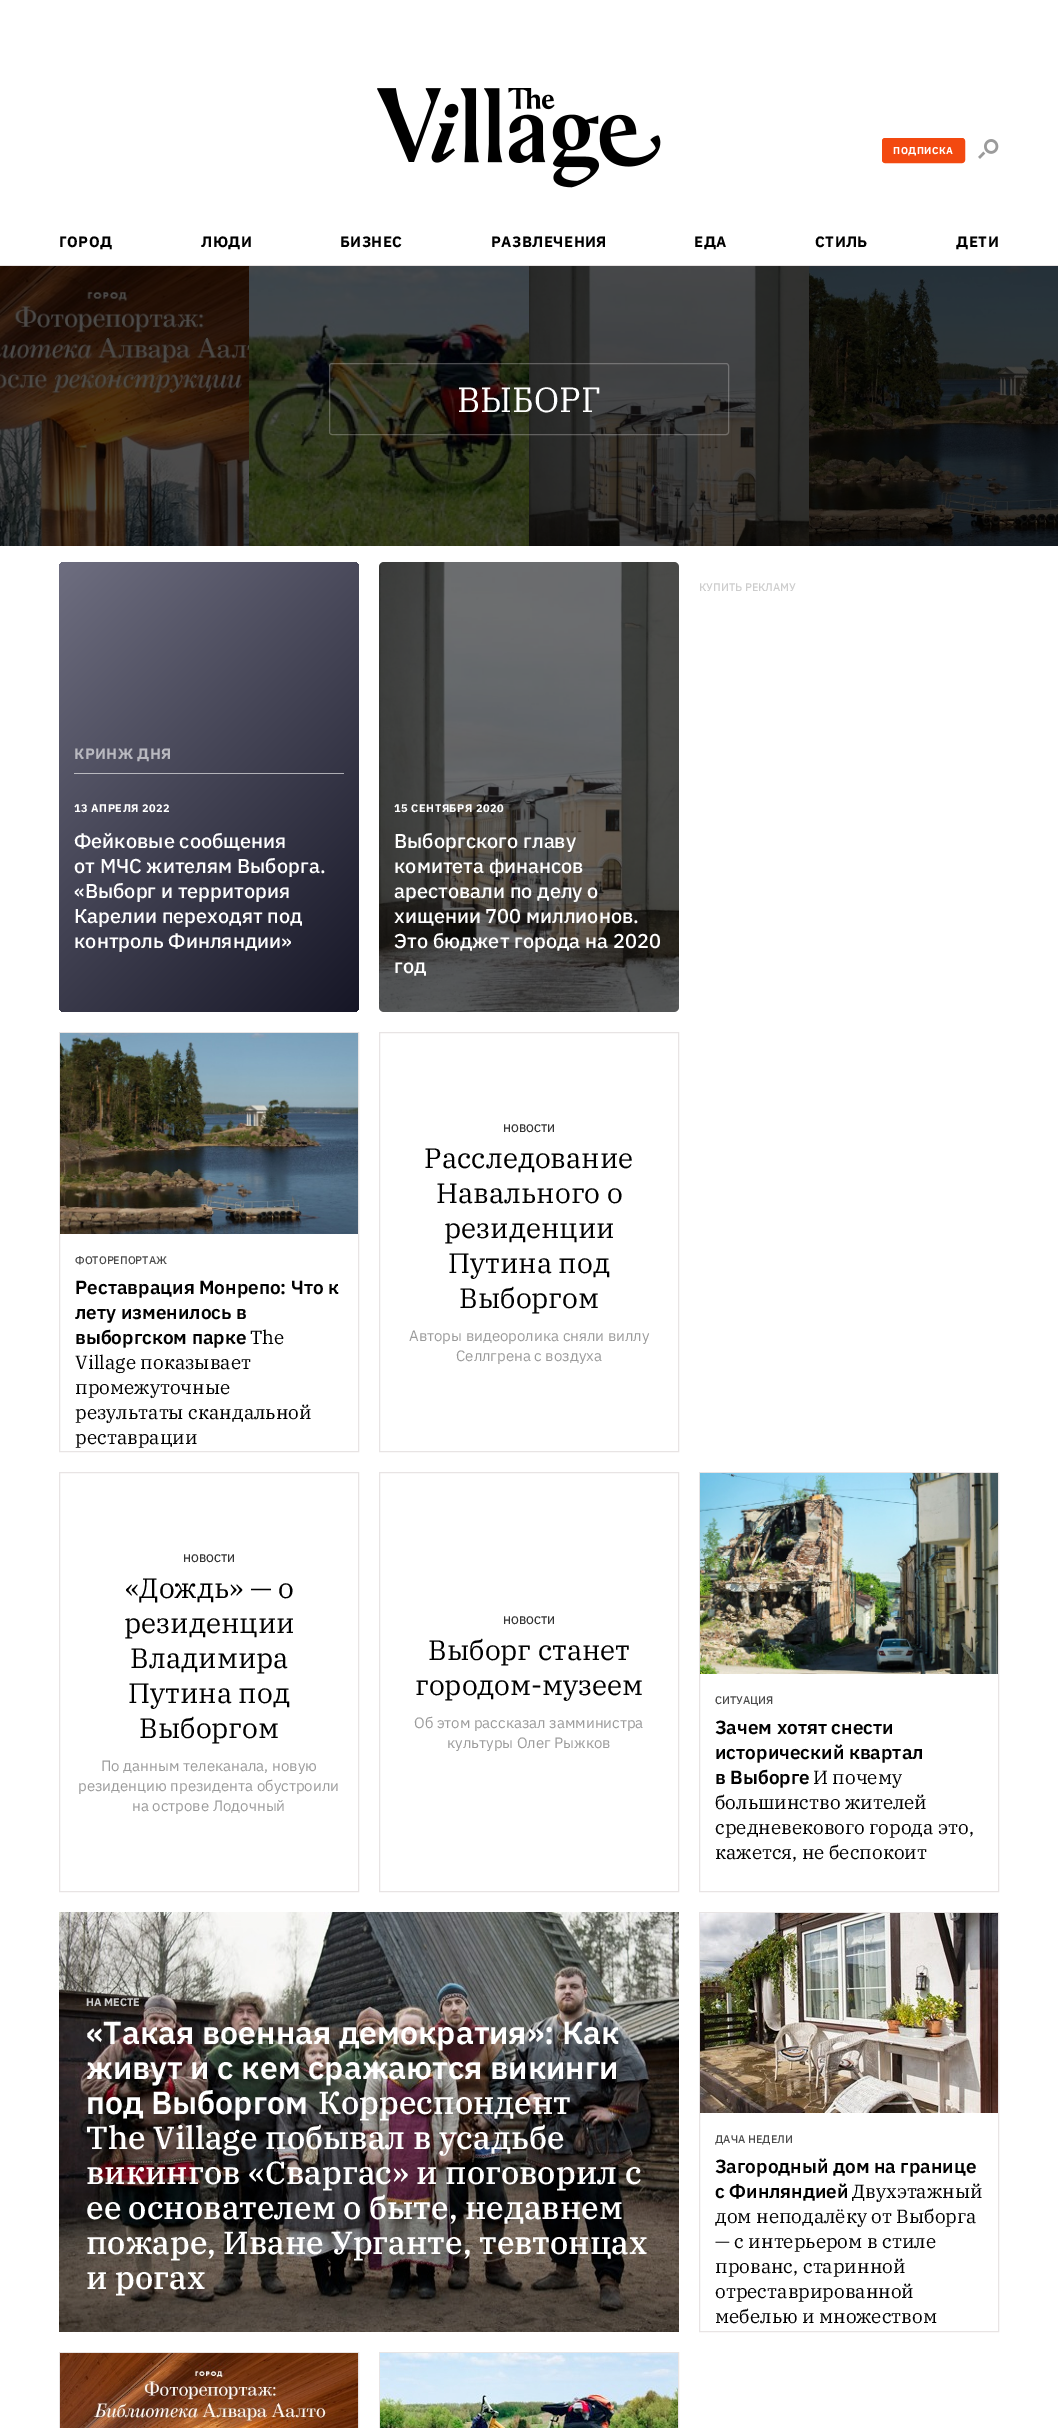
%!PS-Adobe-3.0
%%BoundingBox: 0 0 1058 2428
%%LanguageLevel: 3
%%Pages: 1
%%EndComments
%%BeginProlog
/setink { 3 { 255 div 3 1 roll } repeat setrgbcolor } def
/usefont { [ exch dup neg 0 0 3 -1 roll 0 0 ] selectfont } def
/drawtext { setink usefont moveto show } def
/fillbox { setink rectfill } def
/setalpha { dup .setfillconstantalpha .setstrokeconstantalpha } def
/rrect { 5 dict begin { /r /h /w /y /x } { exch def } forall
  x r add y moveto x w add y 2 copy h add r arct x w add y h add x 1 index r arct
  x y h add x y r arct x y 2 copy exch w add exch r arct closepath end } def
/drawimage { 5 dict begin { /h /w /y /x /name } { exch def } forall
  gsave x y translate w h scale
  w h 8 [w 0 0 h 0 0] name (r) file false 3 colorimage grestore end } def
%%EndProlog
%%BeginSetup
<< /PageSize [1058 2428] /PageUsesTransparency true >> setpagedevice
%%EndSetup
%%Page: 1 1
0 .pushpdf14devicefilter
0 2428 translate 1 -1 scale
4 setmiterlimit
0 0 1058 2428 255 255 255 fillbox
0 265 1058 1 232 228 228 fillbox
(assets/img1.rgb) 377 88 284 100 drawimage
243 73 16 setink
882.5 138.5 82 24 2.5 rrect gsave fill grestore
stroke
/IBMPlexSans-Bold 10 usefont
255 255 255 setink
893 154 moveto 0.5 0 (ПОДПИСКА) ashow
(assets/img2.rgb) 978 139 21 20 drawimage
/IBMPlexSans-Bold 15 usefont
0 0 0 setink
59 247 moveto 0.5 0 (ГОРОД) ashow
201 247 moveto 0.5 0 (ЛЮДИ) ashow
340 247 moveto 0.5 0 (БИЗНЕС) ashow
491 247 moveto 0.5 0 (РАЗВЛЕЧЕНИЯ) ashow
694 247 moveto 0.5 0 (ЕДА) ashow
815 247 moveto 0.5 0 (СТИЛЬ) ashow
956 247 moveto 0.5 0 (ДЕТИ) ashow
(assets/img3.rgb) 0 266 249 280 drawimage
(assets/img4.rgb) 249 266 280 280 drawimage
(assets/img5.rgb) 529 266 280 280 drawimage
(assets/img6.rgb) 809 266 249 280 drawimage
0.3 setalpha
232 228 228 setink
329.5 363.5 399 71 2.5 rrect stroke
1 setalpha
(ВЫБОРГ) 457 412 /IBMPlexSerif-Regular 35 255 255 255 drawtext
(КУПИТЬ РЕКЛАМУ) 699 591 /IBMPlexSans-Medium 11 205 205 205 drawtext
gsave 59 562 300 450 5 rrect clip newpath
<< /ShadingType 2 /ColorSpace /DeviceRGB /Coords [22 600 397 975] /Extend [true true] /Function << /FunctionType 2 /Domain [0 1] /C0 [0.431 0.431 0.502] /C1 [0.086 0.086 0.149] /N 1 >> >> shfill grestore
gsave 74 773 moveto 344 773 lineto 344 774 lineto 74 774 lineto closepath clip newpath
<< /ShadingType 2 /ColorSpace /DeviceRGB /Coords [22 600 397 975] /Extend [true true] /Function << /FunctionType 2 /Domain [0 1] /C0 [0.773 0.773 0.8] /C1 [0.635 0.635 0.659] /N 1 >> >> shfill grestore
/IBMPlexSans-Bold 15 usefont
185 185 192 setink
74 759 moveto 0.5 0 (КРИНЖ ДНЯ) ashow
/IBMPlexSans-Bold 11 usefont
255 255 255 setink
74 812 moveto 0.5 0 (13 АПРЕЛЯ 2022) ashow
(Фейковые сообщения) 74 848 /IBMPlexSans-Medium 20 255 255 255 drawtext
(от МЧС жителям Выборга.) 74 873 /IBMPlexSans-Medium 20 255 255 255 drawtext
(«Выборг и территория) 74 898 /IBMPlexSans-Medium 20 255 255 255 drawtext
(Карелии переходят под) 74 923 /IBMPlexSans-Medium 20 255 255 255 drawtext
(контроль Финляндии») 74 948 /IBMPlexSans-Medium 20 255 255 255 drawtext
(assets/img7.rgb) 379 562 300 450 drawimage
0.55 setalpha
0 0 0 setink
379 562 300 450 5 rrect fill
/IBMPlexSans-Bold 11 usefont
1 setalpha
255 255 255 setink
394 812 moveto 0.5 0 (15 СЕНТЯБРЯ 2020) ashow
(Выборгского главу) 394 848 /IBMPlexSans-Medium 20 255 255 255 drawtext
(комитета финансов) 394 873 /IBMPlexSans-Medium 20 255 255 255 drawtext
(арестовали по делу о) 394 898 /IBMPlexSans-Medium 20 255 255 255 drawtext
(хищении 700 миллионов.) 394 923 /IBMPlexSans-Medium 20 255 255 255 drawtext
(Это бюджет города на 2020) 394 948 /IBMPlexSans-Medium 20 255 255 255 drawtext
(год) 394 973 /IBMPlexSans-Medium 20 255 255 255 drawtext
232 228 228 setink
59.5 1032.5 299 419 rectstroke
(assets/img8.rgb) 60 1033 298 201 drawimage
(ФОТОРЕПОРТАЖ) 75 1264 /IBMPlexSans-Medium 11 74 74 74 drawtext
(Реставрация Монрепо: Что к) 75 1294 /IBMPlexSans-SemiBold 19 0 0 0 drawtext
(лету изменилось в) 75 1319 /IBMPlexSans-SemiBold 19 0 0 0 drawtext
(выборгском парке) 75 1344 /IBMPlexSans-SemiBold 19 0 0 0 drawtext
(The) 250 1344 /IBMPlexSerif-Regular 19 0 0 0 drawtext
(Village показывает) 75 1369 /IBMPlexSerif-Regular 19 0 0 0 drawtext
(промежуточные) 75 1394 /IBMPlexSerif-Regular 19 0 0 0 drawtext
(результаты скандальной) 75 1419 /IBMPlexSerif-Regular 19 0 0 0 drawtext
(реставрации) 75 1444 /IBMPlexSerif-Regular 19 0 0 0 drawtext
232 228 228 setink
379.5 1032.5 299 419 rectstroke
(НОВОСТИ) 503 1132 /IBMPlexSans-Medium 11 51 51 51 drawtext
(Расследование) 424 1168 /IBMPlexSerif-Regular 28 0 0 0 drawtext
(Навального о) 436 1203 /IBMPlexSerif-Regular 28 0 0 0 drawtext
(резиденции) 444 1238 /IBMPlexSerif-Regular 28 0 0 0 drawtext
(Путина под) 448 1273 /IBMPlexSerif-Regular 28 0 0 0 drawtext
(Выборгом) 459 1308 /IBMPlexSerif-Regular 28 0 0 0 drawtext
(Авторы видеоролика сняли виллу) 409 1341 /IBMPlexSans-Regular 15 155 155 155 drawtext
(Селлгрена с воздуха) 456 1361 /IBMPlexSans-Regular 15 155 155 155 drawtext
232 228 228 setink
59.5 1472.5 299 419 rectstroke
(НОВОСТИ) 183 1562 /IBMPlexSans-Medium 11 51 51 51 drawtext
(«Дождь» — о) 125 1598 /IBMPlexSerif-Regular 28 0 0 0 drawtext
(резиденции) 124 1633 /IBMPlexSerif-Regular 28 0 0 0 drawtext
(Владимира) 130 1668 /IBMPlexSerif-Regular 28 0 0 0 drawtext
(Путина под) 128 1703 /IBMPlexSerif-Regular 28 0 0 0 drawtext
(Выборгом) 139 1738 /IBMPlexSerif-Regular 28 0 0 0 drawtext
(По данным телеканала, новую) 101 1771 /IBMPlexSans-Regular 15 155 155 155 drawtext
(резиденцию президента обустроили) 78 1791 /IBMPlexSans-Regular 15 155 155 155 drawtext
(на острове Лодочный) 132 1811 /IBMPlexSans-Regular 15 155 155 155 drawtext
232 228 228 setink
379.5 1472.5 299 419 rectstroke
(НОВОСТИ) 503 1624 /IBMPlexSans-Medium 11 51 51 51 drawtext
(Выборг станет) 428 1660 /IBMPlexSerif-Regular 28 0 0 0 drawtext
(городом-музеем) 415 1695 /IBMPlexSerif-Regular 28 0 0 0 drawtext
(Об этом рассказал замминистра) 414 1728 /IBMPlexSans-Regular 15 155 155 155 drawtext
(культуры Олег Рыжков) 447 1748 /IBMPlexSans-Regular 15 155 155 155 drawtext
232 228 228 setink
699.5 1472.5 299 419 rectstroke
(assets/img9.rgb) 700 1473 298 201 drawimage
(СИТУАЦИЯ) 715 1704 /IBMPlexSans-Medium 11 74 74 74 drawtext
(Зачем хотят снести) 715 1734 /IBMPlexSans-SemiBold 19 0 0 0 drawtext
(исторический квартал) 715 1759 /IBMPlexSans-SemiBold 19 0 0 0 drawtext
(в Выборге) 715 1784 /IBMPlexSans-SemiBold 19 0 0 0 drawtext
(И почему) 813 1784 /IBMPlexSerif-Regular 19 0 0 0 drawtext
(большинство жителей) 715 1809 /IBMPlexSerif-Regular 19 0 0 0 drawtext
(средневекового города это,) 715 1834 /IBMPlexSerif-Regular 19 0 0 0 drawtext
(кажется, не беспокоит) 715 1859 /IBMPlexSerif-Regular 19 0 0 0 drawtext
(assets/img10.rgb) 59 1912 620 420 drawimage
(НА МЕСТЕ) 86 2006 /IBMPlexSans-Bold 11 205 205 205 drawtext
(«Такая военная демократия»: Как) 86 2044 /IBMPlexSans-SemiBold 32 255 255 255 drawtext
(живут и с кем сражаются викинги) 86 2079 /IBMPlexSans-SemiBold 32 255 255 255 drawtext
(под Выборгом) 86 2114 /IBMPlexSans-SemiBold 32 255 255 255 drawtext
(Корреспондент) 318 2114 /IBMPlexSerif-Medium 32 255 255 255 drawtext
(The Village побывал в усадьбе) 86 2149 /IBMPlexSerif-Medium 32 255 255 255 drawtext
(викингов «Сваргас» и поговорил с) 86 2184 /IBMPlexSerif-Medium 32 255 255 255 drawtext
(ее основателем о быте, недавнем) 86 2219 /IBMPlexSerif-Medium 32 255 255 255 drawtext
(пожаре, Иване Урганте, тевтонцах) 86 2254 /IBMPlexSerif-Medium 32 255 255 255 drawtext
(и рогах) 86 2289 /IBMPlexSerif-Medium 32 255 255 255 drawtext
232 228 228 setink
699.5 1912.5 299 419 rectstroke
(assets/img11.rgb) 700 1913 298 200 drawimage
(ДАЧА НЕДЕЛИ) 715 2143 /IBMPlexSans-Medium 11 74 74 74 drawtext
(Загородный дом на границе) 715 2173 /IBMPlexSans-SemiBold 19 0 0 0 drawtext
(с Финляндией) 715 2198 /IBMPlexSans-SemiBold 19 0 0 0 drawtext
(Двухэтажный) 852 2198 /IBMPlexSerif-Regular 19 0 0 0 drawtext
(дом неподалёку от Выборга) 715 2223 /IBMPlexSerif-Regular 19 0 0 0 drawtext
(— с интерьером в стиле) 715 2248 /IBMPlexSerif-Regular 19 0 0 0 drawtext
(прованс, старинной) 715 2273 /IBMPlexSerif-Regular 19 0 0 0 drawtext
(отреставрированной) 715 2298 /IBMPlexSerif-Regular 19 0 0 0 drawtext
(мебелью и множеством) 715 2323 /IBMPlexSerif-Regular 19 0 0 0 drawtext
232 228 228 setink
59.5 2352.5 299 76 rectstroke
(assets/img12.rgb) 60 2353 298 75 drawimage
379.5 2352.5 299 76 rectstroke
(assets/img13.rgb) 380 2353 298 75 drawimage
.poppdf14devicefilter showpage
%%EOF
